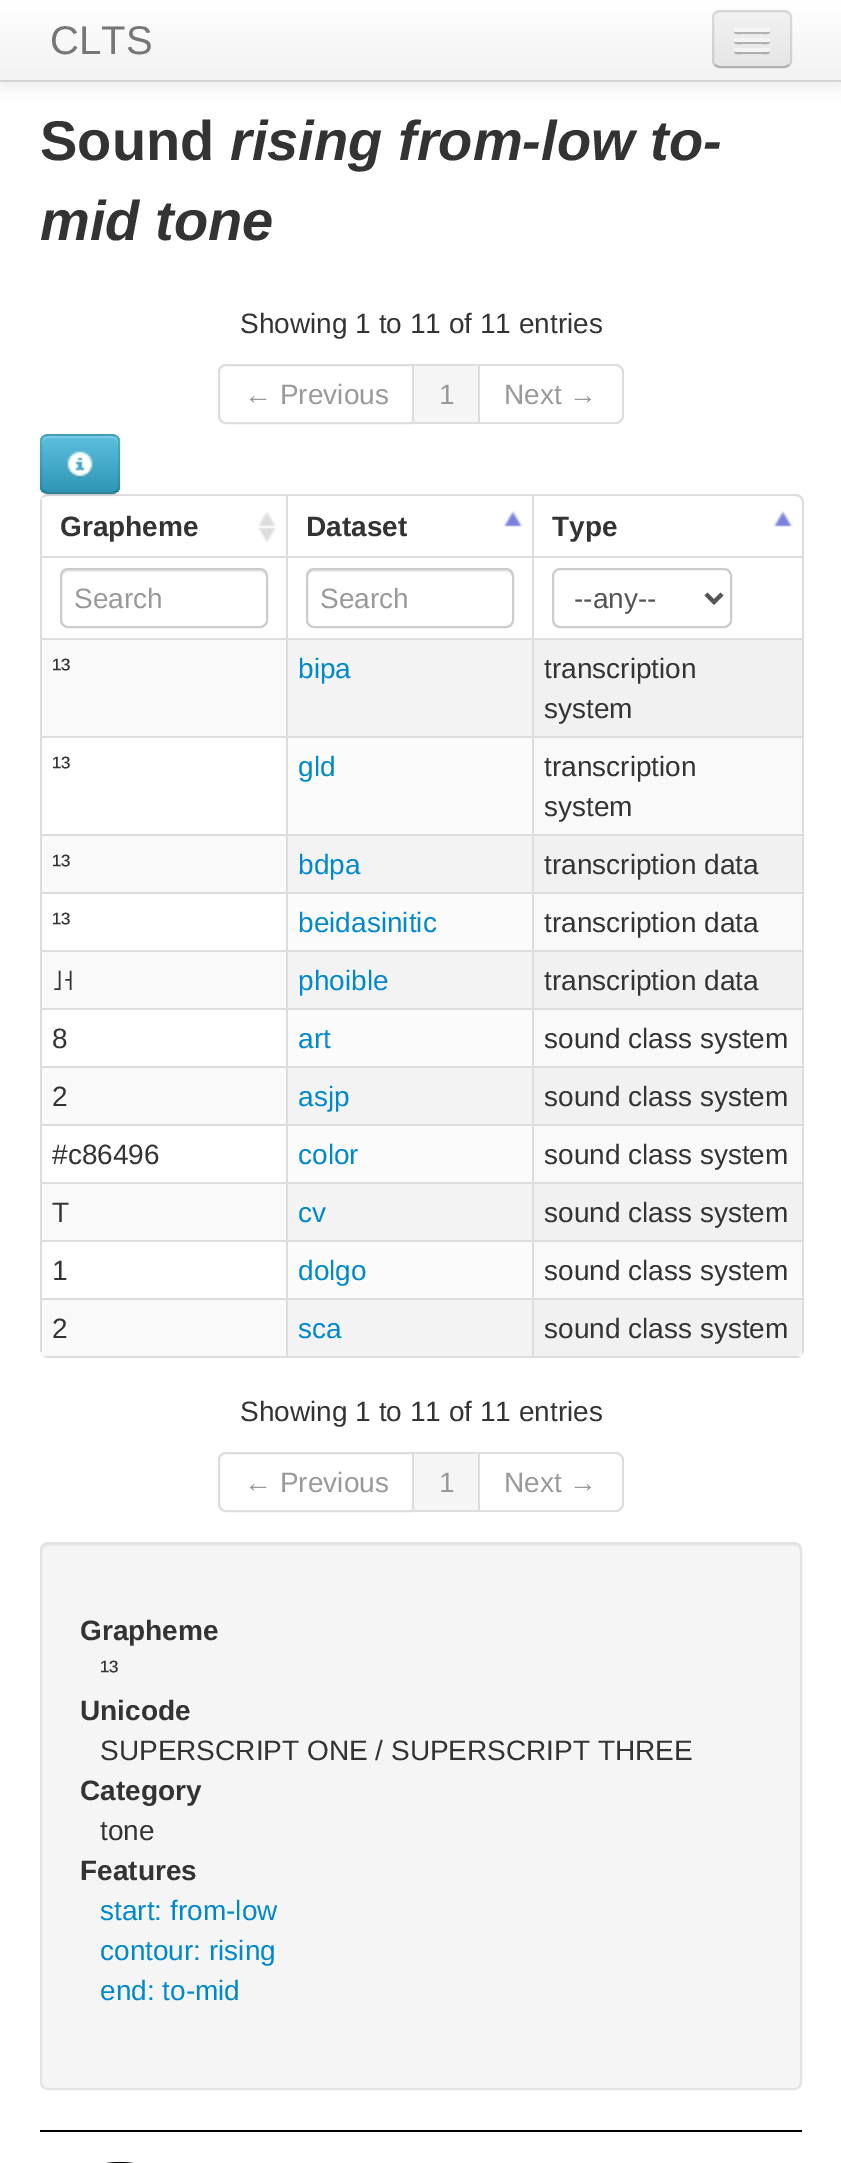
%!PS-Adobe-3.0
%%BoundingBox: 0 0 841 2163
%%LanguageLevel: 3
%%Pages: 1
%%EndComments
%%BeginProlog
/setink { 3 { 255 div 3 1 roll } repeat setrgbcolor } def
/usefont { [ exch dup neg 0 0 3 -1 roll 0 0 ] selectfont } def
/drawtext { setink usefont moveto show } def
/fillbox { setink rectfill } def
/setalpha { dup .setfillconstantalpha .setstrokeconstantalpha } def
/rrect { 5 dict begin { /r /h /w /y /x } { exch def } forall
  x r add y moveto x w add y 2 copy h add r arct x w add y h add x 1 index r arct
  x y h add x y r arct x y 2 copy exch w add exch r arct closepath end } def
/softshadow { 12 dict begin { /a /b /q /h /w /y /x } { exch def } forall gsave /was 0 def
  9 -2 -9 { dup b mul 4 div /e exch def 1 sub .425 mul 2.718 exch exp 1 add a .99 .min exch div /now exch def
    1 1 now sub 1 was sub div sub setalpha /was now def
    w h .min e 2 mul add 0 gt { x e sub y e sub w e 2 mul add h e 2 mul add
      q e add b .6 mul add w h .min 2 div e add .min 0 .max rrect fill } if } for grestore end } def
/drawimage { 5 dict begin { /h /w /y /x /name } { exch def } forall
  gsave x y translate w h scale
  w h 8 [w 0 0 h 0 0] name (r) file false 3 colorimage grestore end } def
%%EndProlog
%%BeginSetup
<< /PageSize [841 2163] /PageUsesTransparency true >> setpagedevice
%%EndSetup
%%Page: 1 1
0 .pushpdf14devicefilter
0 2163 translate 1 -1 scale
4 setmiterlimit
0 0 841 2163 255 255 255 fillbox
0 0 0 setink
0 2 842 82 0 10 0.1 softshadow
gsave 0 0 moveto 841 0 lineto 841 80 lineto 0 80 lineto closepath clip newpath
<< /ShadingType 2 /ColorSpace /DeviceRGB /Coords [421 0 421 80] /Extend [true true] /Function << /FunctionType 2 /Domain [0 1] /C0 [1 1 1] /C1 [0.949 0.949 0.949] /N 1 >> >> shfill grestore
0 80 841 2 212 212 212 fillbox
(CLTS) 50 54 /LiberationSans-Regular 40 119 119 119 drawtext
237 237 237 setink
712 10 80 58 8 rrect fill
gsave
712 10 80 58 8 rrect clip newpath
gsave 712 12 moveto 792 12 lineto 792 66 lineto 712 66 lineto closepath clip newpath
<< /ShadingType 2 /ColorSpace /DeviceRGB /Coords [752 12 752 66] /Extend [true true] /Function << /FunctionType 2 /Domain [0 1] /C0 [0.949 0.949 0.949] /C1 [0.898 0.898 0.898] /N 1 >> >> shfill grestore
grestore
0.25 setalpha
0 0 0 setink
2 setlinewidth
789 65 moveto 787.5 66.5 786 67 784 67 curveto 720 67 lineto 718 67 716.5 66.5 715 65 curveto stroke
0.1 setalpha
715 65 moveto 713.5 63.5 713 62 713 60 curveto 713 18 lineto 713 16 713.5 14.5 715 13 curveto 716.5 11.5 718 11 720 11 curveto 784 11 lineto 786 11 787.5 11.5 789 13 curveto 790.5 14.5 791 16 791 18 curveto 791 60 lineto 791 62 790.5 63.5 789 65 curveto stroke
1 setalpha
178 178 178 setink
734.5 31 moveto 732 35 741 34 741.5 34 curveto 762.5 34 lineto 763 34 772 35 769.5 31 curveto 769.5 31.5 768.5 32 768 32 curveto 736 32 lineto 735.5 32 734.5 31.5 734.5 31 curveto closepath fill
245 245 245 setink
734 28 36 4 2 rrect fill
176 176 176 setink
734.5 41 moveto 732 45 741 44 741.5 44 curveto 762.5 44 lineto 763 44 772 45 769.5 41 curveto 769.5 41.5 768.5 42 768 42 curveto 736 42 lineto 735.5 42 734.5 41.5 734.5 41 curveto closepath fill
245 245 245 setink
734 38 36 4 2 rrect fill
174 174 174 setink
734.5 51 moveto 732 55 741 54 741.5 54 curveto 762.5 54 lineto 763 54 772 55 769.5 51 curveto 769.5 51.5 768.5 52 768 52 curveto 736 52 lineto 735.5 52 734.5 51.5 734.5 51 curveto closepath fill
245 245 245 setink
734 48 36 4 2 rrect fill
(Sound) 40 160 /LiberationSans-Bold 56 51 51 51 drawtext
(rising from-low to-) 230 160 /LiberationSans-BoldItalic 56 51 51 51 drawtext
(mid tone) 40 240 /LiberationSans-BoldItalic 56 51 51 51 drawtext
(Showing 1 to 11 of 11 entries) 240 333 /LiberationSans-Regular 28 51 51 51 drawtext
221 221 221 setink
226 365 moveto 413 365 lineto 413 423 lineto 226 423 lineto 222 423 219 420 219 416 curveto 219 372 lineto 219 368 222 365 226 365 curveto closepath stroke
(← Previous) 244 404 /LiberationSans-Regular 28 153 153 153 drawtext
414 366 64 56 245 245 245 fillbox
414 364 66 2 221 221 221 fillbox
478 364 2 60 221 221 221 fillbox
414 422 66 2 221 221 221 fillbox
(1) 439 404 /LiberationSans-Regular 28 153 153 153 drawtext
221 221 221 setink
480 364 moveto 616 364 lineto 620 364 624 368 624 372 curveto 624 416 lineto 624 420 620 424 616 424 curveto 480 424 lineto closepath 480 366 moveto 616 366 lineto 619 366 622 369 622 372 curveto 622 416 lineto 622 419 619 422 616 422 curveto 480 422 lineto closepath eofill
(Next →) 504 404 /LiberationSans-Regular 28 153 153 153 drawtext
221 221 221 setink
48 494 moveto 796 494 lineto 800 494 804 498 804 502 curveto 804 1350 lineto 804 1354 800 1358 796 1358 curveto 48 1358 lineto 44 1358 40 1354 40 1350 curveto 40 502 lineto 40 498 44 494 48 494 curveto closepath 48 496 moveto 796 496 lineto 799 496 802 499 802 502 curveto 802 1350 lineto 802 1353 799 1356 796 1356 curveto 48 1356 lineto 44 1356 40 1353 40 1350 curveto 40 502 lineto 40 499 44 496 48 496 curveto closepath eofill
40 500 2 56 221 221 221 fillbox
0 0 0 setink
40 436 80 60 8 2 0.05 softshadow
73 175 205 setink
40 434 80 60 8 rrect fill
gsave
40 434 80 60 8 rrect clip newpath
gsave 40 436 moveto 120 436 lineto 120 492 lineto 40 492 lineto closepath clip newpath
<< /ShadingType 2 /ColorSpace /DeviceRGB /Coords [80 436 80 492] /Extend [true true] /Function << /FunctionType 2 /Domain [0 1] /C0 [0.357 0.753 0.871] /C1 [0.184 0.588 0.706] /N 1 >> >> shfill grestore
grestore
0.2 setalpha
255 255 255 setink
48 438 moveto 112 438 lineto 115 438 118 441 118 444 curveto 118 434 110 436 101 436 curveto 59 436 lineto 50 436 42 434 42 444 curveto 42 441 45 438 48 438 curveto closepath fill
0.25 setalpha
0 0 0 setink
117 491 moveto 115.5 492.5 114 493 112 493 curveto 48 493 lineto 46 493 44.5 492.5 43 491 curveto stroke
0.1 setalpha
43 491 moveto 41.5 489.5 41 488 41 486 curveto 41 442 lineto 41 440 41.5 438.5 43 437 curveto 44.5 435.5 46 435 48 435 curveto 112 435 lineto 114 435 115.5 435.5 117 437 curveto 118.5 438.5 119 440 119 442 curveto 119 486 lineto 119 488 118.5 489.5 117 491 curveto stroke
1 setalpha
(assets/img1.rgb) 67 451 26 27 drawimage
(assets/img2.rgb) 258 511 18 32 drawimage
(Grapheme) 60 536 /LiberationSans-Bold 28 51 51 51 drawtext
(assets/img3.rgb) 503 511 20 16 drawimage
286 496 2 60 221 221 221 fillbox
(Dataset) 306 536 /LiberationSans-Bold 28 51 51 51 drawtext
(assets/img3.rgb) 773 511 20 16 drawimage
532 496 2 60 221 221 221 fillbox
(Type) 552 536 /LiberationSans-Bold 28 51 51 51 drawtext
40 556 762 2 221 221 221 fillbox
40 556 2 82 221 221 221 fillbox
236 236 236 setink
68 572 moveto 260 572 lineto 263 572 266 575 266 578 curveto 266 576 lineto 266 573 263 570 260 570 curveto 68 570 lineto 65 570 62 573 62 576 curveto 62 578 lineto 62 575 65 572 68 572 curveto closepath fill
204 204 204 setink
61 569 206 58 7 rrect stroke
(Search) 74 608 /LiberationSans-Regular 28 153 153 153 drawtext
286 556 2 82 221 221 221 fillbox
236 236 236 setink
314 572 moveto 506 572 lineto 509 572 512 575 512 578 curveto 512 576 lineto 512 573 509 570 506 570 curveto 314 570 lineto 311 570 308 573 308 576 curveto 308 578 lineto 308 575 311 572 314 572 curveto closepath fill
204 204 204 setink
307 569 206 58 7 rrect stroke
(Search) 320 608 /LiberationSans-Regular 28 153 153 153 drawtext
532 556 2 82 221 221 221 fillbox
204 204 204 setink
553 569 178 58 7 rrect stroke
85 85 85 setink
4 setlinewidth
706 594 moveto 714 602 lineto 722 594 lineto stroke
(--any--) 574 608 /LiberationSans-Regular 28 85 85 85 drawtext
42 640 244 96 249 249 249 fillbox
40 638 762 2 221 221 221 fillbox
40 638 2 98 221 221 221 fillbox
(¹³) 52 678 /LiberationSans-Regular 28 51 51 51 drawtext
288 640 244 96 243 243 243 fillbox
286 638 2 98 221 221 221 fillbox
(bipa) 298 678 /LiberationSans-Regular 28 0 136 204 drawtext
534 640 268 96 241 241 241 fillbox
532 638 2 98 221 221 221 fillbox
(transcription) 544 678 /LiberationSans-Regular 28 51 51 51 drawtext
(system) 544 718 /LiberationSans-Regular 28 51 51 51 drawtext
40 736 762 2 221 221 221 fillbox
40 736 2 98 221 221 221 fillbox
(¹³) 52 776 /LiberationSans-Regular 28 51 51 51 drawtext
288 738 244 96 251 251 251 fillbox
286 736 2 98 221 221 221 fillbox
(gld) 298 776 /LiberationSans-Regular 28 0 136 204 drawtext
534 738 268 96 249 249 249 fillbox
532 736 2 98 221 221 221 fillbox
(transcription) 544 776 /LiberationSans-Regular 28 51 51 51 drawtext
(system) 544 816 /LiberationSans-Regular 28 51 51 51 drawtext
42 836 244 56 249 249 249 fillbox
40 834 762 2 221 221 221 fillbox
40 834 2 58 221 221 221 fillbox
(¹³) 52 874 /LiberationSans-Regular 28 51 51 51 drawtext
288 836 244 56 243 243 243 fillbox
286 834 2 58 221 221 221 fillbox
(bdpa) 298 874 /LiberationSans-Regular 28 0 136 204 drawtext
534 836 268 56 241 241 241 fillbox
532 834 2 58 221 221 221 fillbox
(transcription data) 544 874 /LiberationSans-Regular 28 51 51 51 drawtext
40 892 762 2 221 221 221 fillbox
40 892 2 58 221 221 221 fillbox
(¹³) 52 932 /LiberationSans-Regular 28 51 51 51 drawtext
288 894 244 56 251 251 251 fillbox
286 892 2 58 221 221 221 fillbox
(beidasinitic) 298 932 /LiberationSans-Regular 28 0 136 204 drawtext
534 894 268 56 249 249 249 fillbox
532 892 2 58 221 221 221 fillbox
(transcription data) 544 932 /LiberationSans-Regular 28 51 51 51 drawtext
42 952 244 56 249 249 249 fillbox
40 950 762 2 221 221 221 fillbox
40 950 2 58 221 221 221 fillbox
(˩˧) 52 990 /LiberationSans-Regular 28 51 51 51 drawtext
288 952 244 56 243 243 243 fillbox
286 950 2 58 221 221 221 fillbox
(phoible) 298 990 /LiberationSans-Regular 28 0 136 204 drawtext
534 952 268 56 241 241 241 fillbox
532 950 2 58 221 221 221 fillbox
(transcription data) 544 990 /LiberationSans-Regular 28 51 51 51 drawtext
40 1008 762 2 221 221 221 fillbox
40 1008 2 58 221 221 221 fillbox
(8) 52 1048 /LiberationSans-Regular 28 51 51 51 drawtext
288 1010 244 56 251 251 251 fillbox
286 1008 2 58 221 221 221 fillbox
(art) 298 1048 /LiberationSans-Regular 28 0 136 204 drawtext
534 1010 268 56 249 249 249 fillbox
532 1008 2 58 221 221 221 fillbox
(sound class system) 544 1048 /LiberationSans-Regular 28 51 51 51 drawtext
42 1068 244 56 249 249 249 fillbox
40 1066 762 2 221 221 221 fillbox
40 1066 2 58 221 221 221 fillbox
(2) 52 1106 /LiberationSans-Regular 28 51 51 51 drawtext
288 1068 244 56 243 243 243 fillbox
286 1066 2 58 221 221 221 fillbox
(asjp) 298 1106 /LiberationSans-Regular 28 0 136 204 drawtext
534 1068 268 56 241 241 241 fillbox
532 1066 2 58 221 221 221 fillbox
(sound class system) 544 1106 /LiberationSans-Regular 28 51 51 51 drawtext
40 1124 762 2 221 221 221 fillbox
40 1124 2 58 221 221 221 fillbox
(#c86496) 52 1164 /LiberationSans-Regular 28 51 51 51 drawtext
288 1126 244 56 251 251 251 fillbox
286 1124 2 58 221 221 221 fillbox
(color) 298 1164 /LiberationSans-Regular 28 0 136 204 drawtext
534 1126 268 56 249 249 249 fillbox
532 1124 2 58 221 221 221 fillbox
(sound class system) 544 1164 /LiberationSans-Regular 28 51 51 51 drawtext
42 1184 244 56 249 249 249 fillbox
40 1182 762 2 221 221 221 fillbox
40 1182 2 58 221 221 221 fillbox
(T) 52 1222 /LiberationSans-Regular 28 51 51 51 drawtext
288 1184 244 56 243 243 243 fillbox
286 1182 2 58 221 221 221 fillbox
(cv) 298 1222 /LiberationSans-Regular 28 0 136 204 drawtext
534 1184 268 56 241 241 241 fillbox
532 1182 2 58 221 221 221 fillbox
(sound class system) 544 1222 /LiberationSans-Regular 28 51 51 51 drawtext
40 1240 762 2 221 221 221 fillbox
40 1240 2 58 221 221 221 fillbox
(1) 52 1280 /LiberationSans-Regular 28 51 51 51 drawtext
288 1242 244 56 251 251 251 fillbox
286 1240 2 58 221 221 221 fillbox
(dolgo) 298 1280 /LiberationSans-Regular 28 0 136 204 drawtext
534 1242 268 56 249 249 249 fillbox
532 1240 2 58 221 221 221 fillbox
(sound class system) 544 1280 /LiberationSans-Regular 28 51 51 51 drawtext
40 1300 762 56 249 249 249 fillbox
40 1298 492 2 221 221 221 fillbox
40 1298 2 54 221 221 221 fillbox
(2) 52 1338 /LiberationSans-Regular 28 51 51 51 drawtext
288 1300 244 56 243 243 243 fillbox
286 1298 2 58 221 221 221 fillbox
(sca) 298 1338 /LiberationSans-Regular 28 0 136 204 drawtext
241 241 241 setink
532 1298 moveto 802 1298 lineto 802 1348 lineto 802 1352.5 798.5 1356 794 1356 curveto 532 1356 lineto closepath fill
532 1298 270 2 221 221 221 fillbox
532 1298 2 58 221 221 221 fillbox
(sound class system) 544 1338 /LiberationSans-Regular 28 51 51 51 drawtext
(Showing 1 to 11 of 11 entries) 240 1421 /LiberationSans-Regular 28 51 51 51 drawtext
221 221 221 setink
2 setlinewidth
226 1453 moveto 413 1453 lineto 413 1511 lineto 226 1511 lineto 222 1511 219 1508 219 1504 curveto 219 1460 lineto 219 1456 222 1453 226 1453 curveto closepath stroke
(← Previous) 244 1492 /LiberationSans-Regular 28 153 153 153 drawtext
414 1454 64 56 245 245 245 fillbox
414 1452 66 2 221 221 221 fillbox
478 1452 2 60 221 221 221 fillbox
414 1510 66 2 221 221 221 fillbox
(1) 439 1492 /LiberationSans-Regular 28 153 153 153 drawtext
221 221 221 setink
480 1452 moveto 616 1452 lineto 620 1452 624 1456 624 1460 curveto 624 1504 lineto 624 1508 620 1512 616 1512 curveto 480 1512 lineto closepath 480 1454 moveto 616 1454 lineto 619 1454 622 1457 622 1460 curveto 622 1504 lineto 622 1507 619 1510 616 1510 curveto 480 1510 lineto closepath eofill
(Next →) 504 1492 /LiberationSans-Regular 28 153 153 153 drawtext
245 245 245 setink
40 1542 762 548 8 rrect fill
233 233 233 setink
48 1546 moveto 794 1546 lineto 797 1546 800 1549 800 1552 curveto 800 1548 799 1544 794 1544 curveto 48 1544 lineto 43 1544 42 1548 42 1552 curveto 42 1549 45 1546 48 1546 curveto closepath fill
227 227 227 setink
41 1543 760 546 7 rrect stroke
(Grapheme) 80 1640 /LiberationSans-Bold 28 51 51 51 drawtext
(¹³) 100 1680 /LiberationSans-Regular 28 51 51 51 drawtext
(Unicode) 80 1720 /LiberationSans-Bold 28 51 51 51 drawtext
(SUPERSCRIPT ONE / SUPERSCRIPT THREE) 100 1760 /LiberationSans-Regular 28 51 51 51 drawtext
(Category) 80 1800 /LiberationSans-Bold 28 51 51 51 drawtext
(tone) 100 1840 /LiberationSans-Regular 28 51 51 51 drawtext
(Features) 80 1880 /LiberationSans-Bold 28 51 51 51 drawtext
(start: from-low) 100 1920 /LiberationSans-Regular 28 0 136 204 drawtext
(contour: rising) 100 1960 /LiberationSans-Regular 28 0 136 204 drawtext
(end: to-mid) 100 2000 /LiberationSans-Regular 28 0 136 204 drawtext
40 2130 762 2 0 0 0 fillbox
(assets/img4.rgb) 105 2162 30 1 drawimage
.poppdf14devicefilter showpage
%%EOF
